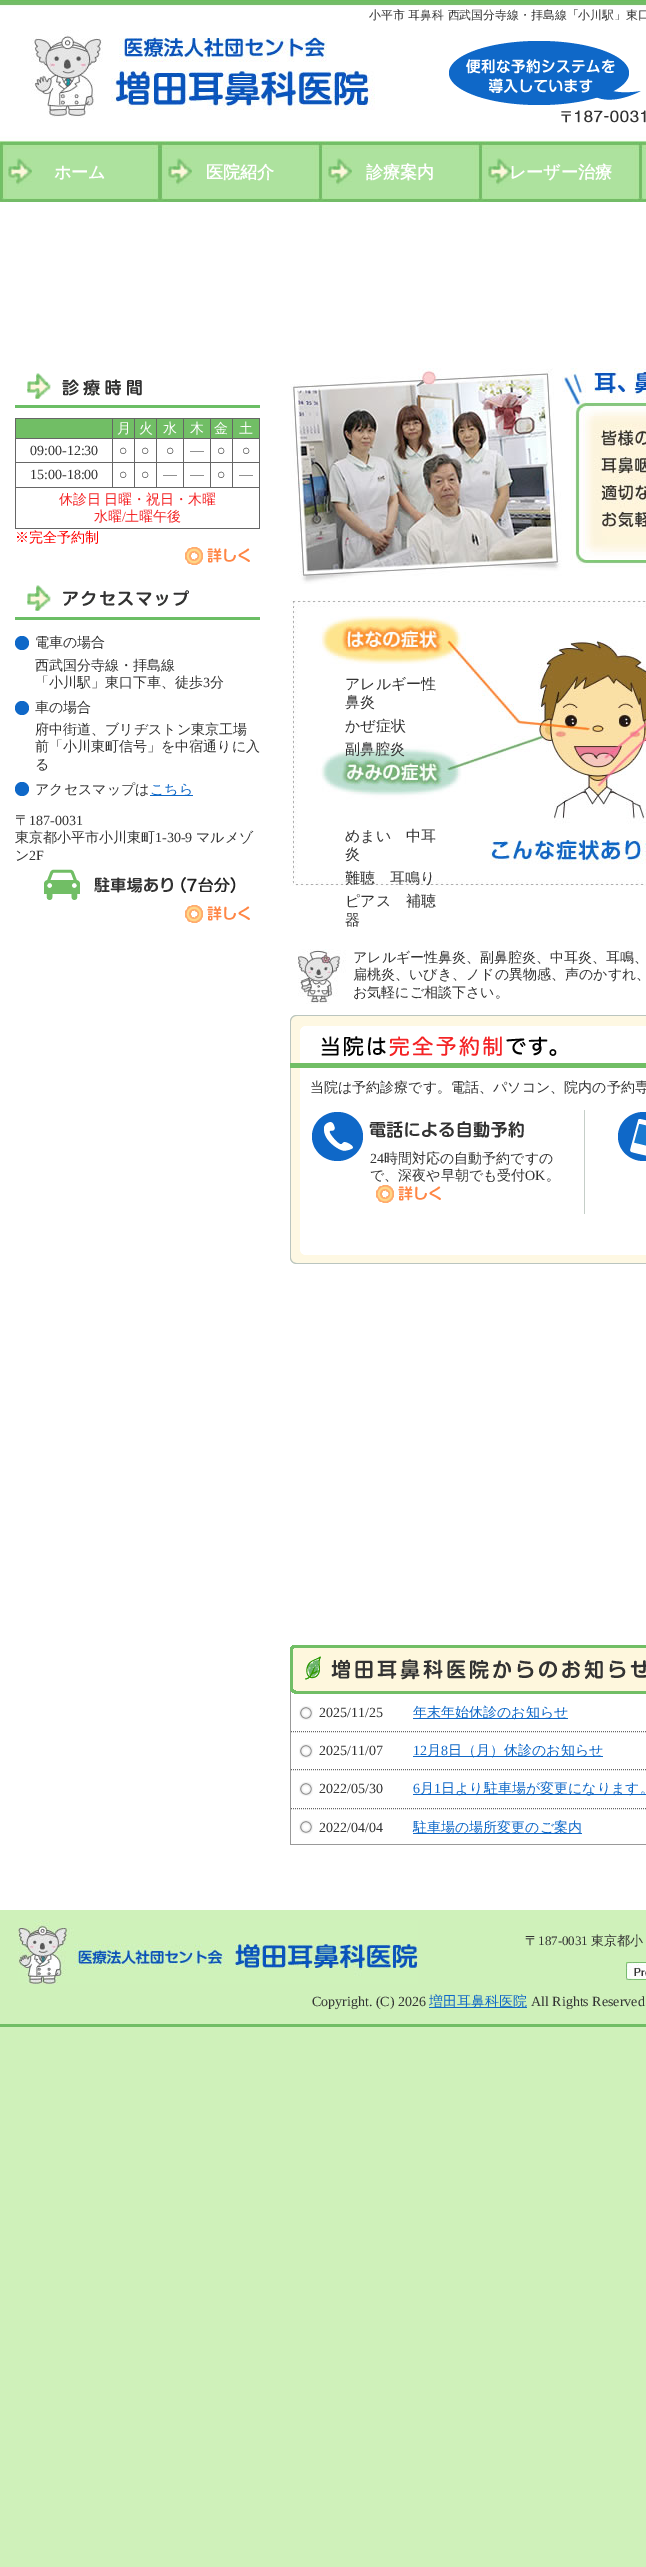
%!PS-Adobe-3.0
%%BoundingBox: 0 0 646 2567
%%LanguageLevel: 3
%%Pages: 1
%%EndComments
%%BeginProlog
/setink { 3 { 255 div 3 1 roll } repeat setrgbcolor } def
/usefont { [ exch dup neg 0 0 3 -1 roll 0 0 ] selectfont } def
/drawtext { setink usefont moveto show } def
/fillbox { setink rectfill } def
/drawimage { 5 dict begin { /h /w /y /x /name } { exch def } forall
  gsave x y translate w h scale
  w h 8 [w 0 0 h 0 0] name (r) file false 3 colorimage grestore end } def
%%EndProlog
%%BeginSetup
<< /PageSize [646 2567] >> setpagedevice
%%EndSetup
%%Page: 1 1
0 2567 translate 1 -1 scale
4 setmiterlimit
0 0 646 2567 207 241 186 fillbox
0 2024 646 3 113 190 101 fillbox
0 202 646 1708 255 255 255 fillbox
(assets/img1.rgb) 0 0 646 142 drawimage
(小平市 耳鼻科 西武国分寺線・拝島線「小川駅」東口) 369 19 /WenQuanYiZenHei-Medium 11.9 51 51 51 drawtext
(assets/img2.rgb) 31 30 344 88 drawimage
(assets/img3.rgb) 449 41 192 64 drawimage
(assets/img4.rgb) 561 110 85 13 drawimage
(assets/img5.rgb) 0 142 160 60 drawimage
(ホーム) 54 178 /WenQuanYiZenHei-Bold 17 255 255 255 drawtext
(assets/img6.rgb) 160 142 160 60 drawimage
(医院紹介) 206 178 /WenQuanYiZenHei-Bold 17 255 255 255 drawtext
(assets/img6.rgb) 320 142 160 60 drawimage
(診療案内) 366 178 /WenQuanYiZenHei-Bold 17 255 255 255 drawtext
(assets/img6.rgb) 480 142 160 60 drawimage
(レーザー治療) 509 178 /WenQuanYiZenHei-Bold 17 255 255 255 drawtext
(assets/img7.rgb) 640 142 6 60 drawimage
(assets/img8.rgb) 15 373 245 35 drawimage
15 418 245 1 102 102 102 fillbox
259 418 1 111 102 102 102 fillbox
15 528 245 1 102 102 102 fillbox
15 418 1 111 102 102 102 fillbox
16 419 96 19 113 190 101 fillbox
113 419 21 19 113 190 101 fillbox
232 438 28 1 102 102 102 fillbox
232 462 28 1 102 102 102 fillbox
15 487 245 1 102 102 102 fillbox
232 462 1 26 102 102 102 fillbox
210 462 23 1 102 102 102 fillbox
232 438 1 25 102 102 102 fillbox
210 438 23 1 102 102 102 fillbox
210 462 1 26 102 102 102 fillbox
183 462 28 1 102 102 102 fillbox
210 438 1 25 102 102 102 fillbox
183 438 28 1 102 102 102 fillbox
183 462 1 26 102 102 102 fillbox
156 462 28 1 102 102 102 fillbox
183 438 1 25 102 102 102 fillbox
156 438 28 1 102 102 102 fillbox
156 462 1 26 102 102 102 fillbox
134 462 23 1 102 102 102 fillbox
156 438 1 25 102 102 102 fillbox
134 438 23 1 102 102 102 fillbox
134 462 1 26 102 102 102 fillbox
112 462 23 1 102 102 102 fillbox
134 438 1 25 102 102 102 fillbox
112 438 23 1 102 102 102 fillbox
112 462 1 26 102 102 102 fillbox
15 462 98 1 102 102 102 fillbox
112 438 1 25 102 102 102 fillbox
15 438 98 1 102 102 102 fillbox
112 418 1 21 102 102 102 fillbox
(月) 117 433 /WenQuanYiZenHei-Medium 14 255 255 255 drawtext
135 419 21 19 113 190 101 fillbox
134 418 1 21 102 102 102 fillbox
(火) 139 433 /WenQuanYiZenHei-Medium 14 255 255 255 drawtext
157 419 26 19 113 190 101 fillbox
156 418 1 21 102 102 102 fillbox
(水) 163 433 /WenQuanYiZenHei-Medium 14 255 255 255 drawtext
184 419 26 19 113 190 101 fillbox
183 418 1 21 102 102 102 fillbox
(木) 190 433 /WenQuanYiZenHei-Medium 14 255 255 255 drawtext
211 419 21 19 113 190 101 fillbox
210 418 1 21 102 102 102 fillbox
(金) 214 433 /WenQuanYiZenHei-Medium 14 255 255 255 drawtext
233 419 26 19 113 190 101 fillbox
232 418 1 21 102 102 102 fillbox
(土) 239 433 /WenQuanYiZenHei-Medium 14 255 255 255 drawtext
(09:00-12:30) 30 455 /LiberationSerif-Regular 14 51 51 51 drawtext
(○) 119 455 /LiberationSerif-Regular 14 51 51 51 drawtext
(○) 141 455 /LiberationSerif-Regular 14 51 51 51 drawtext
(○) 166 455 /LiberationSerif-Regular 14 51 51 51 drawtext
(—) 190 455 /LiberationSerif-Regular 14 51 51 51 drawtext
(○) 217 455 /LiberationSerif-Regular 14 51 51 51 drawtext
(○) 242 455 /LiberationSerif-Regular 14 51 51 51 drawtext
(15:00-18:00) 30 479 /LiberationSerif-Regular 14 51 51 51 drawtext
(○) 119 479 /LiberationSerif-Regular 14 51 51 51 drawtext
(○) 141 479 /LiberationSerif-Regular 14 51 51 51 drawtext
(—) 163 479 /LiberationSerif-Regular 14 51 51 51 drawtext
(—) 190 479 /LiberationSerif-Regular 14 51 51 51 drawtext
(○) 217 479 /LiberationSerif-Regular 14 51 51 51 drawtext
(—) 239 479 /LiberationSerif-Regular 14 51 51 51 drawtext
/WenQuanYiZenHei-Medium 14 usefont
244 36 38 setink
59 504 moveto -1 0 32 (休診日 日曜・祝日・木曜) widthshow
(水曜) 94 521 /WenQuanYiZenHei-Medium 14 244 36 38 drawtext
(/) 122 521 /LiberationSerif-Regular 14 244 36 38 drawtext
(土曜午後) 125 521 /WenQuanYiZenHei-Medium 14 244 36 38 drawtext
(※完全予約制) 15 542 /WenQuanYiZenHei-Medium 14 255 0 0 drawtext
(assets/img9.rgb) 185 547 65 18 drawimage
(assets/img10.rgb) 15 585 245 35 drawimage
(assets/img11.rgb) 15 636 14 14 drawimage
(電車の場合) 35 647 /WenQuanYiZenHei-Medium 14 51 51 51 drawtext
(西武国分寺線・拝島線) 35 670 /WenQuanYiZenHei-Medium 14 51 51 51 drawtext
(「小川駅」東口下車、徒歩) 35 687 /WenQuanYiZenHei-Medium 14 51 51 51 drawtext
(3) 203 687 /LiberationSerif-Regular 14 51 51 51 drawtext
(分) 210 687 /WenQuanYiZenHei-Medium 14 51 51 51 drawtext
(assets/img11.rgb) 15 701 14 14 drawimage
(車の場合) 35 712 /WenQuanYiZenHei-Medium 14 51 51 51 drawtext
(府中街道、ブリヂストン東京工場) 35 734 /WenQuanYiZenHei-Medium 14 51 51 51 drawtext
(前「小川東町信号」を中宿通りに入) 35 751 /WenQuanYiZenHei-Medium 14 51 51 51 drawtext
(る) 35 769 /WenQuanYiZenHei-Medium 14 51 51 51 drawtext
(assets/img11.rgb) 15 782 14 14 drawimage
(アクセスマップは) 35 794 /WenQuanYiZenHei-Medium 14 51 51 51 drawtext
150 795 43 1 15 104 200 fillbox
(こちら) 150 794 /WenQuanYiZenHei-Medium 14 15 104 200 drawtext
(〒) 15 825 /WenQuanYiZenHei-Medium 14 51 51 51 drawtext
(187-0031) 29 825 /LiberationSerif-Regular 14 51 51 51 drawtext
(東京都小平市小川東町) 15 842 /WenQuanYiZenHei-Medium 14 51 51 51 drawtext
(1-30-9) 155 842 /LiberationSerif-Regular 14 51 51 51 drawtext
(マルメゾ) 196 842 /WenQuanYiZenHei-Medium 14 51 51 51 drawtext
(ン) 15 860 /WenQuanYiZenHei-Medium 14 51 51 51 drawtext
(2F) 29 860 /LiberationSerif-Regular 14 51 51 51 drawtext
(assets/img12.rgb) 44 869 192 31 drawimage
(assets/img9.rgb) 185 905 65 18 drawimage
(assets/img13.rgb) 290 368 356 216 drawimage
(assets/img14.rgb) 290 600 356 286 drawimage
(アレルギー性) 345 689 /WenQuanYiZenHei-Medium 15 51 51 51 drawtext
(鼻炎) 345 707 /WenQuanYiZenHei-Medium 15 51 51 51 drawtext
(かぜ症状) 345 731 /WenQuanYiZenHei-Medium 15 51 51 51 drawtext
(副鼻腔炎) 345 754 /WenQuanYiZenHei-Medium 15 51 51 51 drawtext
(めまい　中耳) 345 841 /WenQuanYiZenHei-Medium 15 51 51 51 drawtext
(炎) 345 859 /WenQuanYiZenHei-Medium 15 51 51 51 drawtext
(難聴　耳鳴り) 345 883 /WenQuanYiZenHei-Medium 15 51 51 51 drawtext
(ピアス　補聴) 345 906 /WenQuanYiZenHei-Medium 15 51 51 51 drawtext
(器) 345 925 /WenQuanYiZenHei-Medium 15 51 51 51 drawtext
(assets/img15.rgb) 298 949 48 55 drawimage
(アレルギー性鼻炎、副鼻腔炎、中耳炎、耳鳴、) 353 962 /WenQuanYiZenHei-Medium 14 51 51 51 drawtext
(扁桃炎、いびき、ノドの異物感、声のかすれ、) 353 979 /WenQuanYiZenHei-Medium 14 51 51 51 drawtext
(お気軽にご相談下さい。) 353 997 /WenQuanYiZenHei-Medium 14 51 51 51 drawtext
(assets/img16.rgb) 290 1015 356 249 drawimage
(当院は予約診療です。電話、パソコン、院内の予約専) 310 1092 /WenQuanYiZenHei-Medium 14 51 51 51 drawtext
(assets/img17.rgb) 618 1112 28 49 drawimage
(assets/img18.rgb) 312 1112 212 49 drawimage
584 1110 1 104 197 206 200 fillbox
(24) 370 1163 /LiberationSerif-Regular 14 51 51 51 drawtext
(時間対応の自動予約ですの) 384 1163 /WenQuanYiZenHei-Medium 14 51 51 51 drawtext
(で、深夜や早朝でも受付) 370 1180 /WenQuanYiZenHei-Medium 14 51 51 51 drawtext
(OK) 525 1180 /LiberationSerif-Regular 14 51 51 51 drawtext
(。) 546 1180 /WenQuanYiZenHei-Medium 14 51 51 51 drawtext
(assets/img9.rgb) 376 1185 65 18 drawimage
(assets/img19.rgb) 290 1645 356 49 drawimage
290 1844 356 1 153 153 153 fillbox
290 1694 1 151 153 153 153 fillbox
(assets/img20.rgb) 299 1706 14 14 drawimage
102 102 102 setink
[1 1] 0 setdash
291 1731.5 moveto 403 1731.5 lineto stroke
(2025/11/25) 319 1717 /LiberationSerif-Regular 14 51 51 51 drawtext
102 102 102 setink
403 1731.5 moveto 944 1731.5 lineto stroke
413 1718 155 1 15 104 200 fillbox
(年末年始休診のお知らせ) 413 1717 /WenQuanYiZenHei-Medium 14 15 104 200 drawtext
(assets/img20.rgb) 299 1744 14 14 drawimage
102 102 102 setink
291 1769.5 moveto 403 1769.5 lineto stroke
(2025/11/07) 319 1755 /LiberationSerif-Regular 14 51 51 51 drawtext
102 102 102 setink
403 1769.5 moveto 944 1769.5 lineto stroke
(12) 413 1755 /LiberationSerif-Regular 14 15 104 200 drawtext
413 1756 190 1 15 104 200 fillbox
(月) 427 1755 /WenQuanYiZenHei-Medium 14 15 104 200 drawtext
(8) 441 1755 /LiberationSerif-Regular 14 15 104 200 drawtext
(日（月）休診のお知らせ) 448 1755 /WenQuanYiZenHei-Medium 14 15 104 200 drawtext
(assets/img20.rgb) 299 1782 14 14 drawimage
102 102 102 setink
291 1808.5 moveto 403 1808.5 lineto stroke
(2022/05/30) 319 1793 /LiberationSerif-Regular 14 51 51 51 drawtext
102 102 102 setink
403 1808.5 moveto 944 1808.5 lineto stroke
(6) 413 1793 /LiberationSerif-Regular 14 15 104 200 drawtext
413 1794 233 1 15 104 200 fillbox
(月) 420 1793 /WenQuanYiZenHei-Medium 14 15 104 200 drawtext
(1) 434 1793 /LiberationSerif-Regular 14 15 104 200 drawtext
(日より駐車場が変更になります。) 441 1793 /WenQuanYiZenHei-Medium 14 15 104 200 drawtext
(assets/img20.rgb) 299 1820 14 14 drawimage
(2022/04/04) 319 1832 /LiberationSerif-Regular 14 51 51 51 drawtext
413 1833 169 1 15 104 200 fillbox
(駐車場の場所変更のご案内) 413 1832 /WenQuanYiZenHei-Medium 14 15 104 200 drawtext
(assets/img21.rgb) 18 1920 400 64 drawimage
(〒) 525 1945 /WenQuanYiZenHei-Medium 13 51 51 51 drawtext
(187-0031) 538 1945 /LiberationSerif-Regular 13 51 51 51 drawtext
(東京都小) 591 1945 /WenQuanYiZenHei-Medium 13 51 51 51 drawtext
(assets/img22.rgb) 626 1962 20 18 drawimage
(Copyright. \(C\) 2026) 312 2006 /LiberationSerif-Regular 14 51 51 51 drawtext
429 2007 98 1 15 104 200 fillbox
(増田耳鼻科医院) 429 2006 /WenQuanYiZenHei-Medium 14 15 104 200 drawtext
(All Rights Reserved) 531 2006 /LiberationSerif-Regular 14 51 51 51 drawtext
showpage
%%EOF
